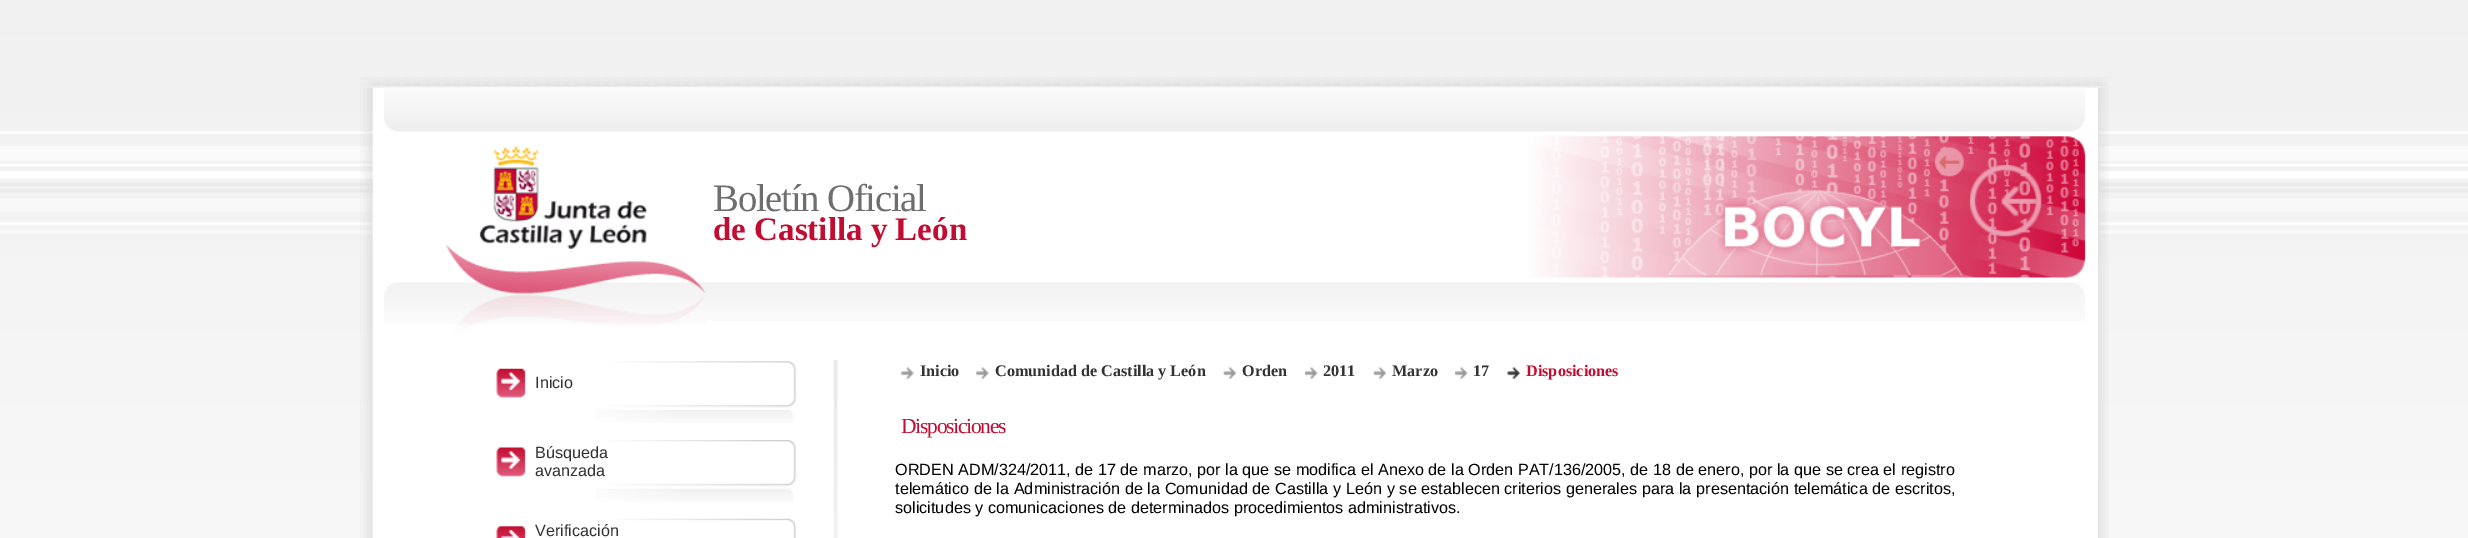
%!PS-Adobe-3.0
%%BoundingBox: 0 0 2468 538
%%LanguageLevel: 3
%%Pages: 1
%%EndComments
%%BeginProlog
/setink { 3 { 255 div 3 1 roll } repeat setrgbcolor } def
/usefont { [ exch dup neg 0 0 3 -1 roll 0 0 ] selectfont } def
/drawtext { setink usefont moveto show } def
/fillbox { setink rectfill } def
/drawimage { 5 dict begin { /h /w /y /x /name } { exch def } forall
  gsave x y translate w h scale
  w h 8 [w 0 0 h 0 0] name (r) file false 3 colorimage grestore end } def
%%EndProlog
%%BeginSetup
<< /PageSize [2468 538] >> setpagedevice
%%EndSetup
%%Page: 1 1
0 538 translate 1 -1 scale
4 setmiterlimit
0 0 2468 538 255 255 255 fillbox
(assets/img1.rgb) 0 0 2468 538 drawimage
(assets/img2.rgb) 360 77 1750 10 drawimage
(assets/img3.rgb) 360 80 10 6 drawimage
(assets/img4.rgb) 2103 78 7 8 drawimage
(assets/img5.rgb) 360 87 13 451 drawimage
(assets/img6.rgb) 2097 87 12 451 drawimage
373 88 1725 450 255 255 255 fillbox
(assets/img7.rgb) 461 87 1625 234 drawimage
(assets/img8.rgb) 384 87 322 244 drawimage
/LiberationSerif-Regular 38.75 usefont
110 110 110 setink
713 211 moveto -1.25 0 (Boletín Oficial) ashow
(de Castilla y León) 713 240 /LiberationSerif-Bold 33 195 12 49 drawtext
(assets/img9.rgb) 833 360 5 178 drawimage
(assets/img10.rgb) 596 361 201 62 drawimage
(assets/img11.rgb) 496 368 30 30 drawimage
(Inicio) 535 388 /LiberationSans-Regular 16.2 51 51 51 drawtext
(assets/img12.rgb) 596 440 201 62 drawimage
(assets/img13.rgb) 496 447 30 30 drawimage
(Búsqueda) 535 458 /LiberationSans-Regular 16.2 51 51 51 drawtext
(avanzada) 535 476 /LiberationSans-Regular 16.2 51 51 51 drawtext
(assets/img14.rgb) 616 518 181 20 drawimage
(assets/img15.rgb) 496 526 30 12 drawimage
(Verificación) 535 536 /LiberationSans-Regular 16.2 51 51 51 drawtext
(assets/img16.rgb) 901 367 13 12 drawimage
(Inicio) 920 376 /LiberationSerif-Bold 16.2 51 51 51 drawtext
(assets/img16.rgb) 976 367 13 12 drawimage
(Comunidad de Castilla y León) 995 376 /LiberationSerif-Bold 16.2 51 51 51 drawtext
(assets/img17.rgb) 1223 367 14 12 drawimage
(Orden) 1242 376 /LiberationSerif-Bold 16.2 51 51 51 drawtext
(assets/img18.rgb) 1305 367 13 12 drawimage
(2011) 1323 376 /LiberationSerif-Bold 16.2 51 51 51 drawtext
(assets/img19.rgb) 1373 367 14 12 drawimage
(Marzo) 1392 376 /LiberationSerif-Bold 16.2 51 51 51 drawtext
(assets/img20.rgb) 1455 367 13 12 drawimage
(17) 1473 376 /LiberationSerif-Bold 16.2 51 51 51 drawtext
(assets/img21.rgb) 1507 367 13 12 drawimage
(Disposiciones) 1526 376 /LiberationSerif-Bold 16.2 195 12 49 drawtext
/LiberationSerif-Regular 21.5 usefont
901 433 moveto -1.25 0 (Disposiciones) ashow
/LiberationSans-Regular 16.2 usefont
0 0 0 setink
895 475 moveto 0.1 0 32 (ORDEN ADM/324/2011, de 17 de marzo, por la que se modifica el Anexo de la Orden PAT/136/2005, de 18 de enero, por la que se crea el registro) widthshow
895 494 moveto 0.25 0 32 (telemático de la Administración de la Comunidad de Castilla y León y se establecen criterios generales para la presentación telemática de escritos,) widthshow
(solicitudes y comunicaciones de determinados procedimientos administrativos.) 895 513 /LiberationSans-Regular 16.2 0 0 0 drawtext
showpage
%%EOF
